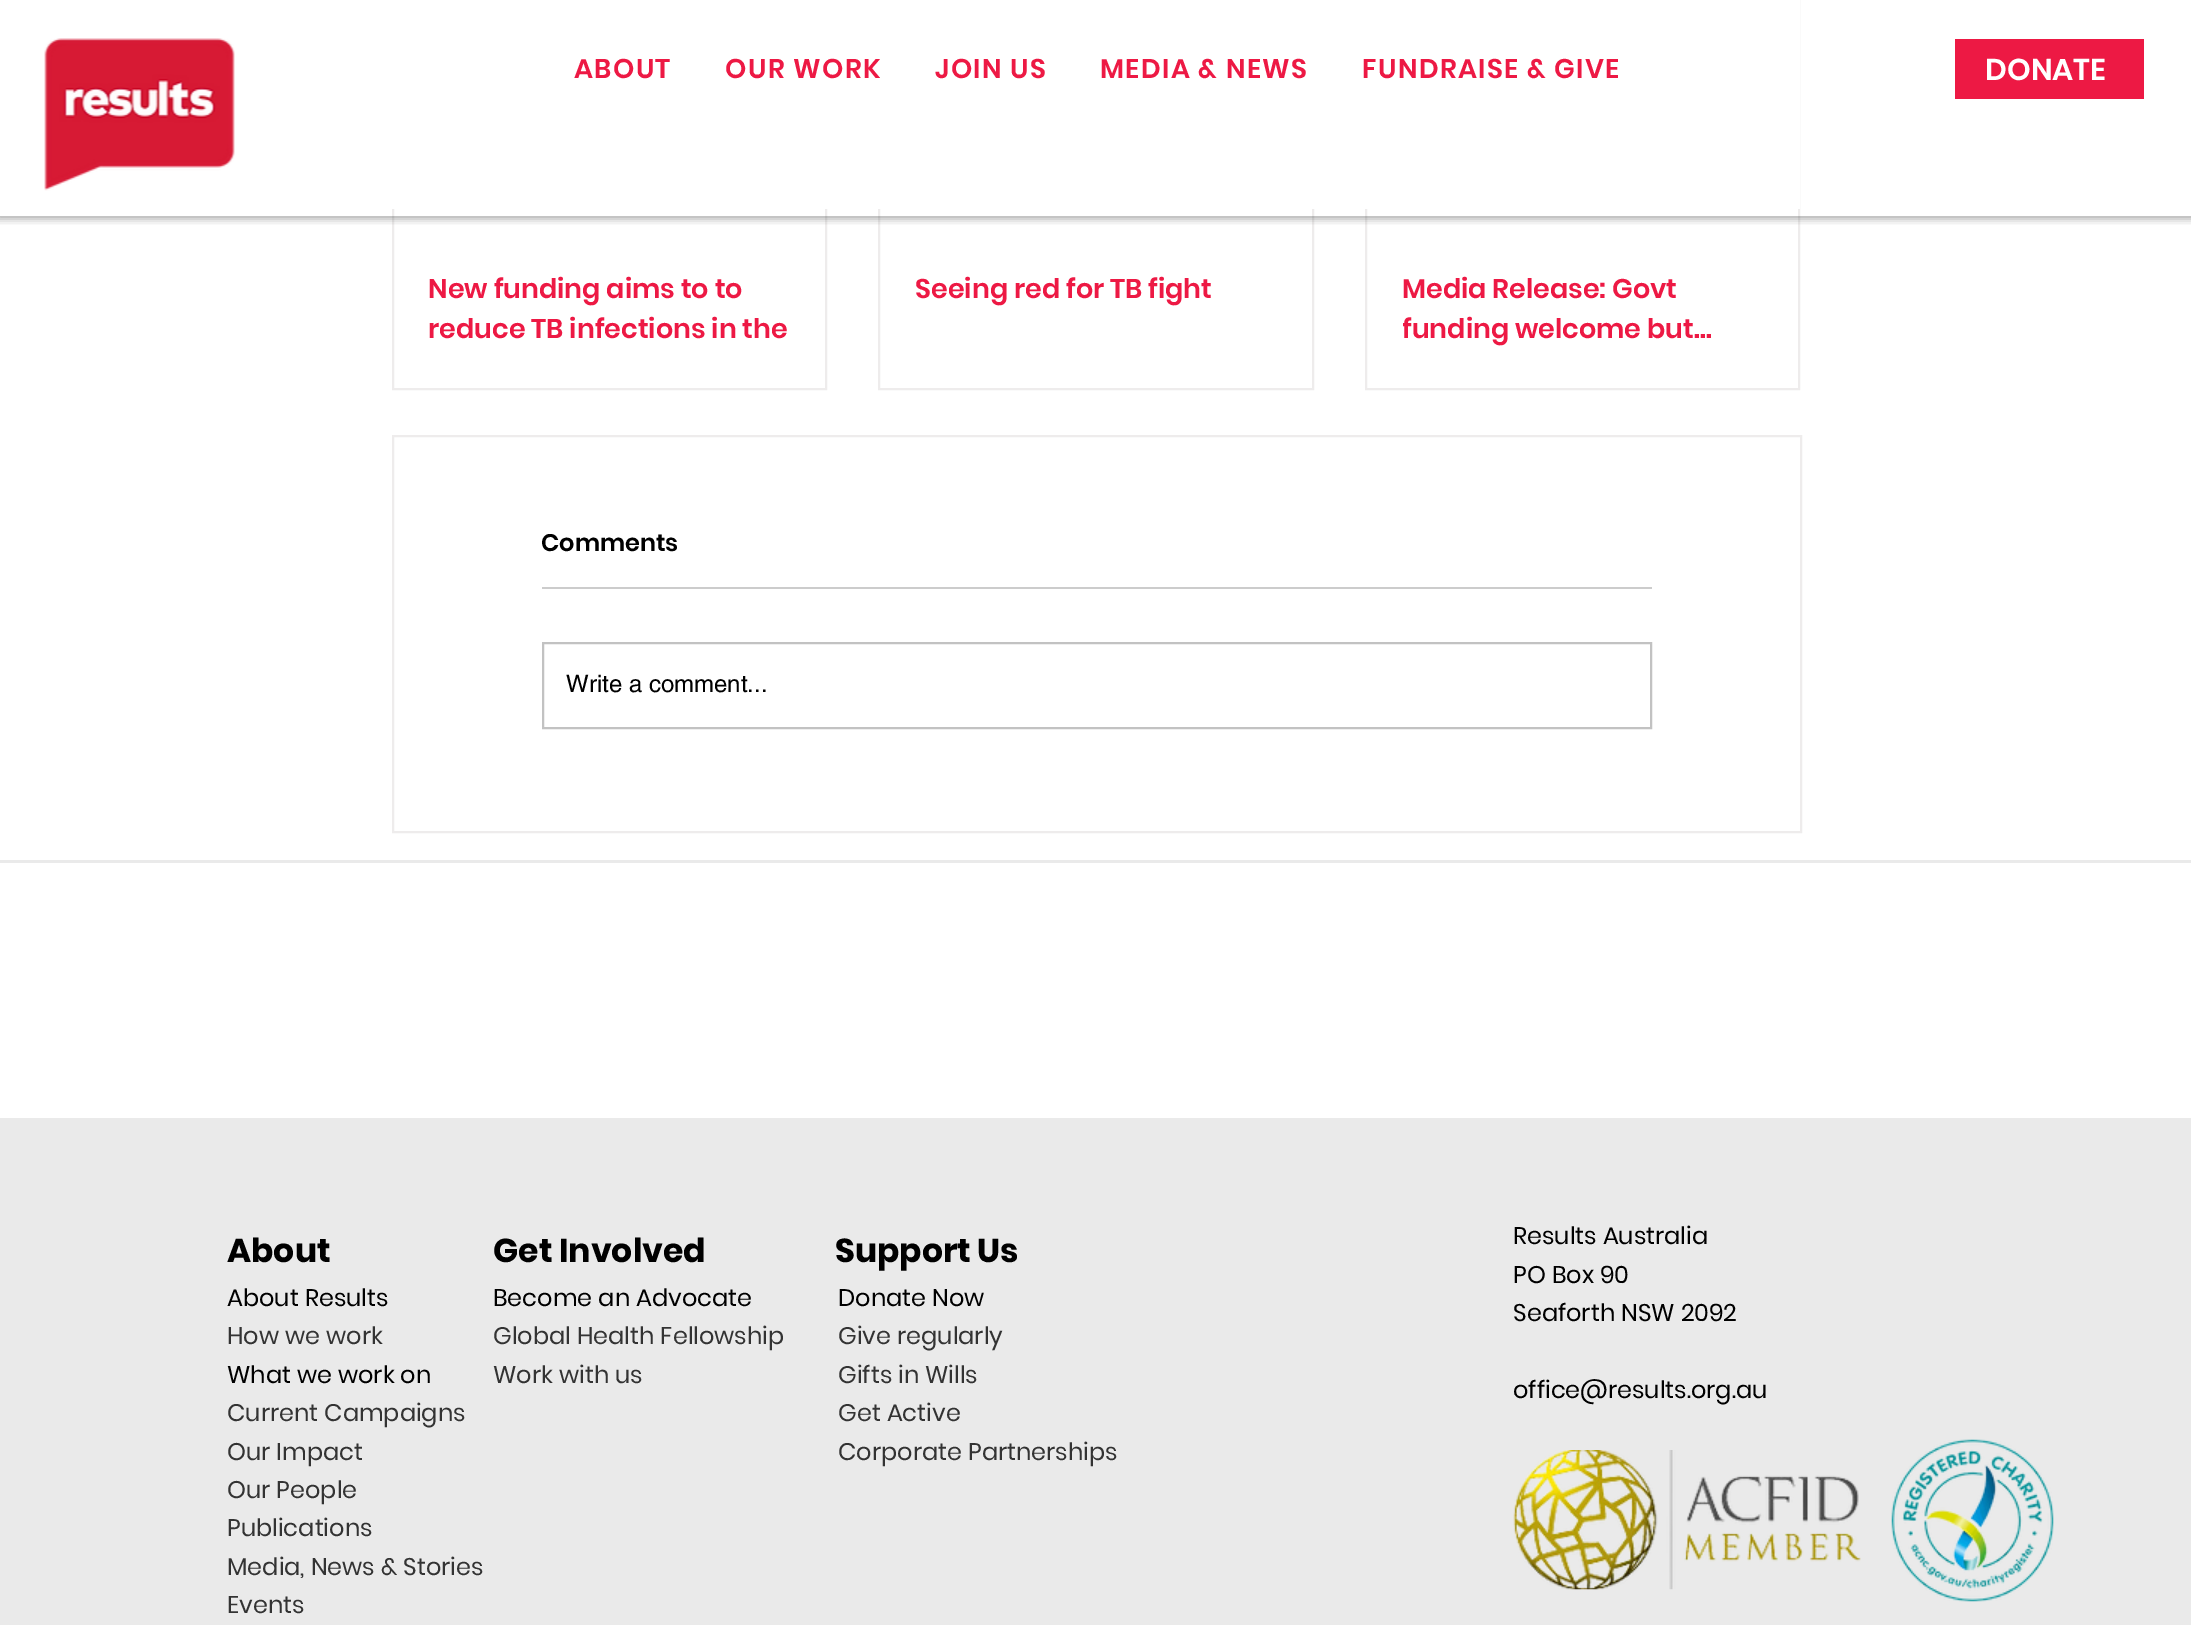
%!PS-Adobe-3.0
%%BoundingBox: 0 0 2191 1625
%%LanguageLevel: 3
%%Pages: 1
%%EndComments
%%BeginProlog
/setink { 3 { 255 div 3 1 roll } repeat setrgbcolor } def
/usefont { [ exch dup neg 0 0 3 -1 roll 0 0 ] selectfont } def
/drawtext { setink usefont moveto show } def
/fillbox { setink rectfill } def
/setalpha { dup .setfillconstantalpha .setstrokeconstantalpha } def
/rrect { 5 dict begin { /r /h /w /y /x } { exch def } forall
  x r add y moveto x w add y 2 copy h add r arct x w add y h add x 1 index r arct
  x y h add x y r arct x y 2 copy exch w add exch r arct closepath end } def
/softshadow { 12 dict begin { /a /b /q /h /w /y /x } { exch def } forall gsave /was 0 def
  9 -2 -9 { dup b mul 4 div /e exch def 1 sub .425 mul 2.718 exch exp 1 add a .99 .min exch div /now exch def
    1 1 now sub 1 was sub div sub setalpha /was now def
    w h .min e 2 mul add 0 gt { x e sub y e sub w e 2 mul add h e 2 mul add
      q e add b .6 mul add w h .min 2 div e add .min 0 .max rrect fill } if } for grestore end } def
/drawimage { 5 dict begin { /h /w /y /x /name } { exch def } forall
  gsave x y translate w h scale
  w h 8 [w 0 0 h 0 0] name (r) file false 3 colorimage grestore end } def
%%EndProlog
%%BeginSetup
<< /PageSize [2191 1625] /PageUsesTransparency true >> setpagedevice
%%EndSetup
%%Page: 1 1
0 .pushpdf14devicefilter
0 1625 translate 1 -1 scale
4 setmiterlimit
0 0 2191 1625 255 255 255 fillbox
238 236 236 setink
2 setlinewidth
393 -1 433 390 rectstroke
879 -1 434 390 rectstroke
1366 -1 433 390 rectstroke
gsave
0 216 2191 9 rectclip
0 0 0 setink
-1 0 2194 219 0 4 0.33 softshadow
grestore
(assets/img1.rgb) 44 38 191 153 drawimage
392 0 1408 209 255 255 255 fillbox
/Poppins-SemiBold 27 usefont
237 25 68 setink
574 78 moveto 1.4 0 (ABOUT) ashow
725 78 moveto 1.4 0 (OUR WORK) ashow
935 78 moveto 1.4 0 (JOIN US) ashow
1100 78 moveto 1.4 0 (MEDIA & NEWS) ashow
1362 78 moveto 1.4 0 (FUNDRAISE & GIVE) ashow
1955 39 189 60 237 25 68 fillbox
(DONATE) 1985 80 /Poppins-SemiBold 30 255 255 255 drawtext
(New funding aims to to) 428 298 /Poppins-SemiBold 27 237 25 68 drawtext
(reduce TB infections in the) 428 338 /Poppins-SemiBold 27 237 25 68 drawtext
(Seeing red for TB fight) 915 298 /Poppins-SemiBold 27 237 25 68 drawtext
(Media Release: Govt) 1402 298 /Poppins-SemiBold 27 237 25 68 drawtext
gsave
1403 267 360 81 rectclip
(funding welcome but…) 1402 338 /Poppins-SemiBold 27 237 25 68 drawtext
grestore
238 236 236 setink
393 436 1408 396 rectstroke
(Comments) 541 551 /Poppins-SemiBold 24 0 0 0 drawtext
542 587 1110 2 204 204 204 fillbox
194 194 194 setink
543 643 1108 85 rectstroke
(Write a comment...) 566 692 /helvetica-Regular 24 0 0 0 drawtext
0 860 2191 765 234 234 234 fillbox
0 863 2191 255 255 255 255 fillbox
(About) 227 1262 /Poppins-Bold 33 0 0 0 drawtext
(About Results) 227 1306 /Poppins-Regular 24 0 0 0 drawtext
(How we work) 227 1344 /Poppins-Regular 24 51 51 51 drawtext
(What we work on) 227 1383 /Poppins-Regular 24 0 0 0 drawtext
(Current Campaigns) 227 1421 /Poppins-Regular 24 51 51 51 drawtext
(Our Impact) 227 1460 /Poppins-Regular 24 51 51 51 drawtext
(Our People) 227 1498 /Poppins-Regular 24 51 51 51 drawtext
(Publications) 227 1536 /Poppins-Regular 24 51 51 51 drawtext
(Media, News & Stories) 227 1575 /Poppins-Regular 24 51 51 51 drawtext
(Events) 227 1613 /Poppins-Regular 24 51 51 51 drawtext
(Get Involved) 493 1262 /Poppins-Bold 33 0 0 0 drawtext
(Support Us) 835 1262 /Poppins-Bold 33 0 0 0 drawtext
(Become an Advocate) 493 1306 /Poppins-Regular 24 0 0 0 drawtext
(Global Health Fellowship) 493 1344 /Poppins-Regular 24 51 51 51 drawtext
(Work with us) 493 1383 /Poppins-Regular 24 51 51 51 drawtext
(Donate Now) 838 1306 /Poppins-Regular 24 0 0 0 drawtext
(Give regularly) 838 1344 /Poppins-Regular 24 51 51 51 drawtext
(Gifts in Wills) 838 1383 /Poppins-Regular 24 51 51 51 drawtext
(Get Active) 838 1421 /Poppins-Regular 24 51 51 51 drawtext
(Corporate Partnerships) 838 1460 /Poppins-Regular 24 51 51 51 drawtext
(Results Australia) 1513 1244 /Poppins-Regular 24 0 0 0 drawtext
(PO Box 90) 1513 1283 /Poppins-Regular 24 0 0 0 drawtext
(Seaforth NSW 2092) 1513 1321 /Poppins-Regular 24 0 0 0 drawtext
(office@results.org.au) 1513 1398 /Poppins-Regular 24 0 0 0 drawtext
(assets/img2.rgb) 1513 1450 348 140 drawimage
(assets/img3.rgb) 1891 1439 163 163 drawimage
.poppdf14devicefilter showpage
%%EOF
